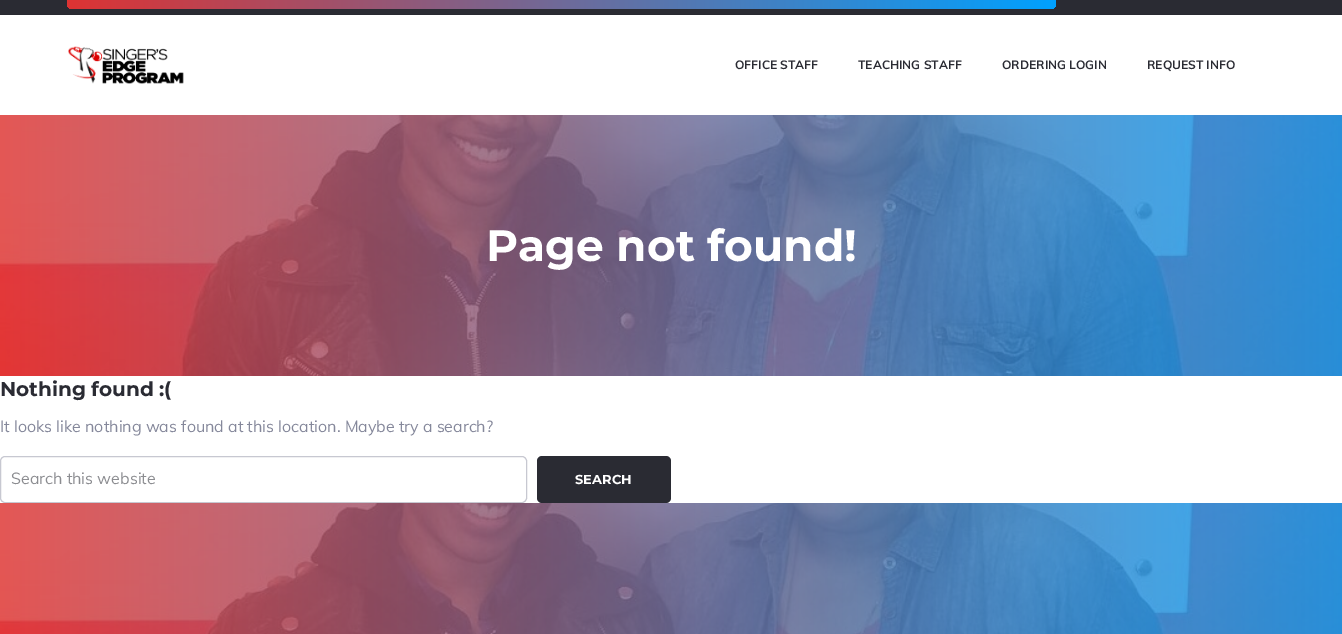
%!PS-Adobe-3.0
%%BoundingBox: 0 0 1342 634
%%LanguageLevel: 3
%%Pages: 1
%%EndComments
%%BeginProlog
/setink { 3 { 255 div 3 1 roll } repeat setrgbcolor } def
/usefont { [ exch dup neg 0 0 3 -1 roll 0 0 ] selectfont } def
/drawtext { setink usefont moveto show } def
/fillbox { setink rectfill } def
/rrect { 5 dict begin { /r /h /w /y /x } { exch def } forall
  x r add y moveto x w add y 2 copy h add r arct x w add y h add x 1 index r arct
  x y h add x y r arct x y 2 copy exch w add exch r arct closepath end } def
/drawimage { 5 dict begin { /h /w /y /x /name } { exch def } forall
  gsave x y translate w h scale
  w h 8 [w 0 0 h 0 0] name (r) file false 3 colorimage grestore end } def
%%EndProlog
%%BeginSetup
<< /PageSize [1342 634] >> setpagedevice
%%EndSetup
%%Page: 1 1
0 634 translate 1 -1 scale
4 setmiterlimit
0 0 1342 634 255 255 255 fillbox
0 0 1342 14 42 43 51 fillbox
0 14 1342 1 40 41 49 fillbox
gsave 67 -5 989 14 5 rrect clip newpath
<< /ShadingType 2 /ColorSpace /DeviceRGB /Coords [67 -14 1056 -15] /Extend [true true] /Function << /FunctionType 2 /Domain [0 1] /C0 [0.867 0.2 0.2] /C1 [0 0.631 1] /N 1 >> >> shfill grestore
(assets/img1.rgb) 68 46 116 38 drawimage
(OFFICE STAFF) 735 69 /Muli-Bold 12 42 43 51 drawtext
(TEACHING STAFF) 858 69 /Muli-Bold 12 42 43 51 drawtext
(ORDERING LOGIN) 1002 69 /Muli-Bold 12 42 43 51 drawtext
(REQUEST INFO) 1147 69 /Muli-Bold 12 42 43 51 drawtext
(assets/img2.rgb) 0 115 1342 261 drawimage
(Page not found!) 486 261 /Montserrat-Thin 44 255 255 255 drawtext
(Nothing found :\() 0 396 /Montserrat-Thin 20 42 43 51 drawtext
(It looks like nothing was found at this location. Maybe try a search?) 0 432 /Muli-Regular 16 133 136 155 drawtext
199 200 209 setink
0.5 456.5 526 46 4.5 rrect stroke
(Search this website) 11 484 /Muli-Regular 16 140 141 145 drawtext
42 43 51 setink
537 456 134 47 5 rrect fill
(SEARCH) 575 484 /Montserrat-Thin 13 255 255 255 drawtext
(assets/img3.rgb) 0 503 1342 131 drawimage
showpage
%%EOF
